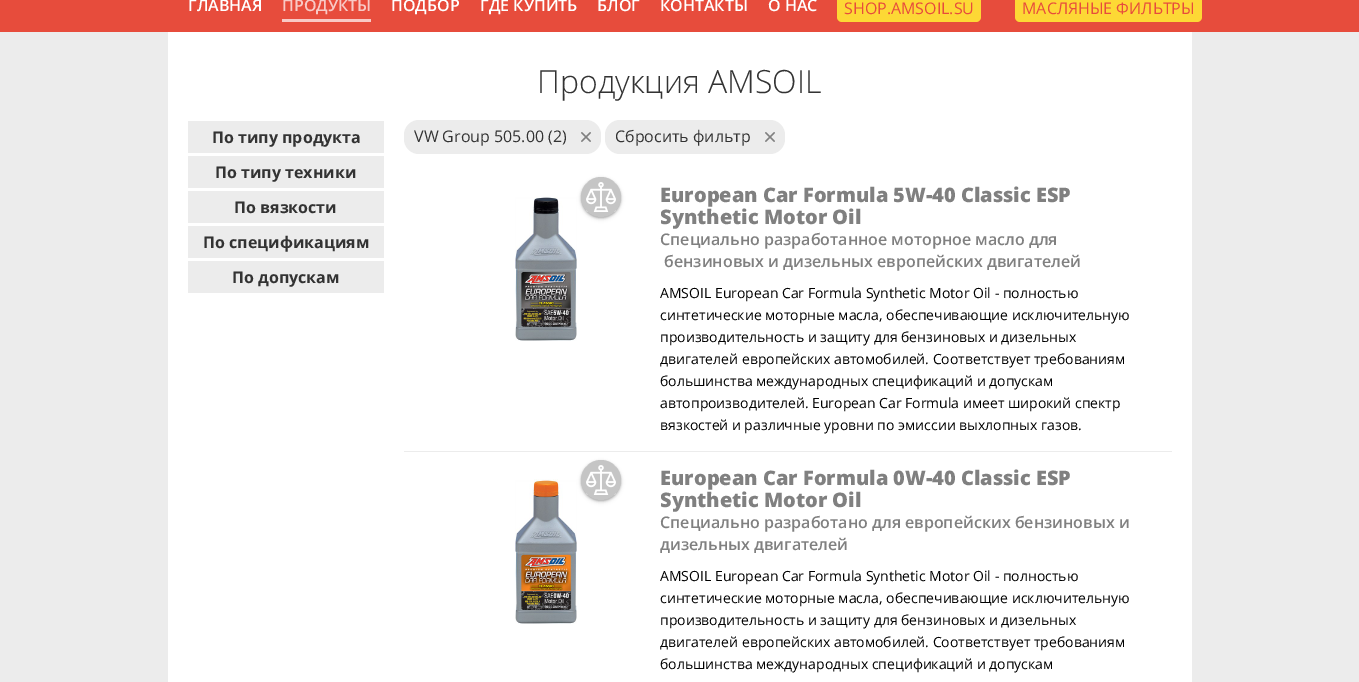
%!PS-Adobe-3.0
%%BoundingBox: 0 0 1359 682
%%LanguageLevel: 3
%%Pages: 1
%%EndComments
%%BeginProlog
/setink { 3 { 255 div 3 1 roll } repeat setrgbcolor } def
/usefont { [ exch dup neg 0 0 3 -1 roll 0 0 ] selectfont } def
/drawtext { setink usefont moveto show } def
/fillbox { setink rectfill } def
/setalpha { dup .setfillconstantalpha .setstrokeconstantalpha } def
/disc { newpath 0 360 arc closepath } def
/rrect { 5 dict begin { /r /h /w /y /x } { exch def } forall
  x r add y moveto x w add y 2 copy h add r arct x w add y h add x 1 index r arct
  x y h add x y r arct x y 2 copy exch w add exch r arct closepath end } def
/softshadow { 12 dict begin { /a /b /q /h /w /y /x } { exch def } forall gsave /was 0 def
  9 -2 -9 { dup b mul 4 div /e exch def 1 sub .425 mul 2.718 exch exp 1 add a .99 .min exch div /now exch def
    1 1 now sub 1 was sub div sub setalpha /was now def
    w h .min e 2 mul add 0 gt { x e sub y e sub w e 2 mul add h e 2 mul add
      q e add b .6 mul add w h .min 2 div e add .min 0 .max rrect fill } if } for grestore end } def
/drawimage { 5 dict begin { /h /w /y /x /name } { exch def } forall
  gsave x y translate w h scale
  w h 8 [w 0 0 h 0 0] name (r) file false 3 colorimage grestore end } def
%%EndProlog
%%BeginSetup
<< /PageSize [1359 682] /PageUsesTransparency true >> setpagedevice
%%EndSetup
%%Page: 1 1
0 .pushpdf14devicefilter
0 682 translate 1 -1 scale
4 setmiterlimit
0 0 1359 682 236 236 236 fillbox
0 0 1359 32 231 76 60 fillbox
(ГЛАВНАЯ) 188 11 /OpenSans-SemiBold 16 255 255 255 drawtext
282 19 89 3 248 201 197 fillbox
(ПРОДУКТЫ) 282 11 /OpenSans-SemiBold 16 248 201 197 drawtext
(ПОДБОР) 391 11 /OpenSans-SemiBold 16 255 255 255 drawtext
(ГДЕ КУПИТЬ) 480 11 /OpenSans-SemiBold 16 255 255 255 drawtext
(БЛОГ) 597 11 /OpenSans-SemiBold 16 255 255 255 drawtext
(КОНТАКТЫ) 660 11 /OpenSans-SemiBold 16 255 255 255 drawtext
(О НАС) 768 11 /OpenSans-SemiBold 16 255 255 255 drawtext
253 216 53 setink
837 -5 144 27 5 rrect fill
(SHOP.AMSOIL.SU) 844 14 /OpenSans-Regular 16 231 76 60 drawtext
253 216 53 setink
1015 -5 187 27 5 rrect fill
(МАСЛЯНЫЕ ФИЛЬТРЫ) 1022 14 /OpenSans-Regular 16 231 76 60 drawtext
168 32 1024 650 255 255 255 fillbox
(Продукция AMSOIL) 537 93 /OpenSans-Light 32 51 51 51 drawtext
188 121 196 32 236 236 236 fillbox
(По типу продукта) 212 143 /OpenSans-Bold 16 51 51 51 drawtext
188 156 196 32 236 236 236 fillbox
(По типу техники) 215 178 /OpenSans-Bold 16 51 51 51 drawtext
188 191 196 32 236 236 236 fillbox
(По вязкости) 234 213 /OpenSans-Bold 16 51 51 51 drawtext
188 226 196 32 236 236 236 fillbox
(По спецификациям) 203 248 /OpenSans-Bold 16 51 51 51 drawtext
188 261 196 32 236 236 236 fillbox
(По допускам) 232 283 /OpenSans-Bold 16 51 51 51 drawtext
236 236 236 setink
404 120 197 34 15 rrect fill
(VW Group 505.00 \(2\)) 414 142 /OpenSans-Regular 16 51 51 51 drawtext
(assets/img1.rgb) 581 132 10 10 drawimage
236 236 236 setink
605 120 180 34 15 rrect fill
(Сбросить фильтр) 615 142 /OpenSans-Regular 16 51 51 51 drawtext
(assets/img1.rgb) 765 132 10 10 drawimage
0 0 0 setink
581 178 40 40 20 1 0.24 softshadow
(assets/img3.rgb) 515 196 62 145 drawimage
581 179 40 40 20 2 0.12 softshadow
197 197 197 setink
601 197 20 disc fill
(assets/img2.rgb) 586 182 30 30 drawimage
404 451 768 1 236 236 236 fillbox
(European Car Formula 5W-40 Classic ESP) 660 202 /OpenSans-ExtraBold 20 128 128 128 drawtext
(Synthetic Motor Oil) 660 224 /OpenSans-ExtraBold 20 128 128 128 drawtext
(Специально разработанное моторное масло для) 660 245 /OpenSans-SemiBold 16 128 128 128 drawtext
(бензиновых и дизельных европейских двигателей) 664 267 /OpenSans-SemiBold 16 128 128 128 drawtext
(AMSOIL European Car Formula Synthetic Motor Oil - полностью) 660 298 /OpenSans-Regular 14 0 0 0 drawtext
(синтетические моторные масла, обеспечивающие исключительную) 660 320 /OpenSans-Regular 14 0 0 0 drawtext
(производительность и защиту для бензиновых и дизельных) 660 342 /OpenSans-Regular 14 0 0 0 drawtext
(двигателей европейских автомобилей. Соответствует требованиям) 660 364 /OpenSans-Regular 14 0 0 0 drawtext
(большинства международных спецификаций и допускам) 660 386 /OpenSans-Regular 14 0 0 0 drawtext
(автопроизводителей. European Car Formula имеет широкий спектр) 660 408 /OpenSans-Regular 14 0 0 0 drawtext
(вязкостей и различные уровни по эмиссии выхлопных газов.) 660 430 /OpenSans-Regular 14 0 0 0 drawtext
581 461 40 40 20 1 0.24 softshadow
(assets/img4.rgb) 515 479 62 145 drawimage
581 462 40 40 20 2 0.12 softshadow
197 197 197 setink
601 480 20 disc fill
(assets/img2.rgb) 586 465 30 30 drawimage
(European Car Formula 0W-40 Classic ESP) 660 485 /OpenSans-ExtraBold 20 128 128 128 drawtext
(Synthetic Motor Oil) 660 507 /OpenSans-ExtraBold 20 128 128 128 drawtext
(Специально разработано для европейских бензиновых и) 660 528 /OpenSans-SemiBold 16 128 128 128 drawtext
(дизельных двигателей) 660 550 /OpenSans-SemiBold 16 128 128 128 drawtext
(AMSOIL European Car Formula Synthetic Motor Oil - полностью) 660 581 /OpenSans-Regular 14 0 0 0 drawtext
(синтетические моторные масла, обеспечивающие исключительную) 660 603 /OpenSans-Regular 14 0 0 0 drawtext
(производительность и защиту для бензиновых и дизельных) 660 625 /OpenSans-Regular 14 0 0 0 drawtext
(двигателей европейских автомобилей. Соответствует требованиям) 660 647 /OpenSans-Regular 14 0 0 0 drawtext
(большинства международных спецификаций и допускам) 660 669 /OpenSans-Regular 14 0 0 0 drawtext
.poppdf14devicefilter showpage
%%EOF
